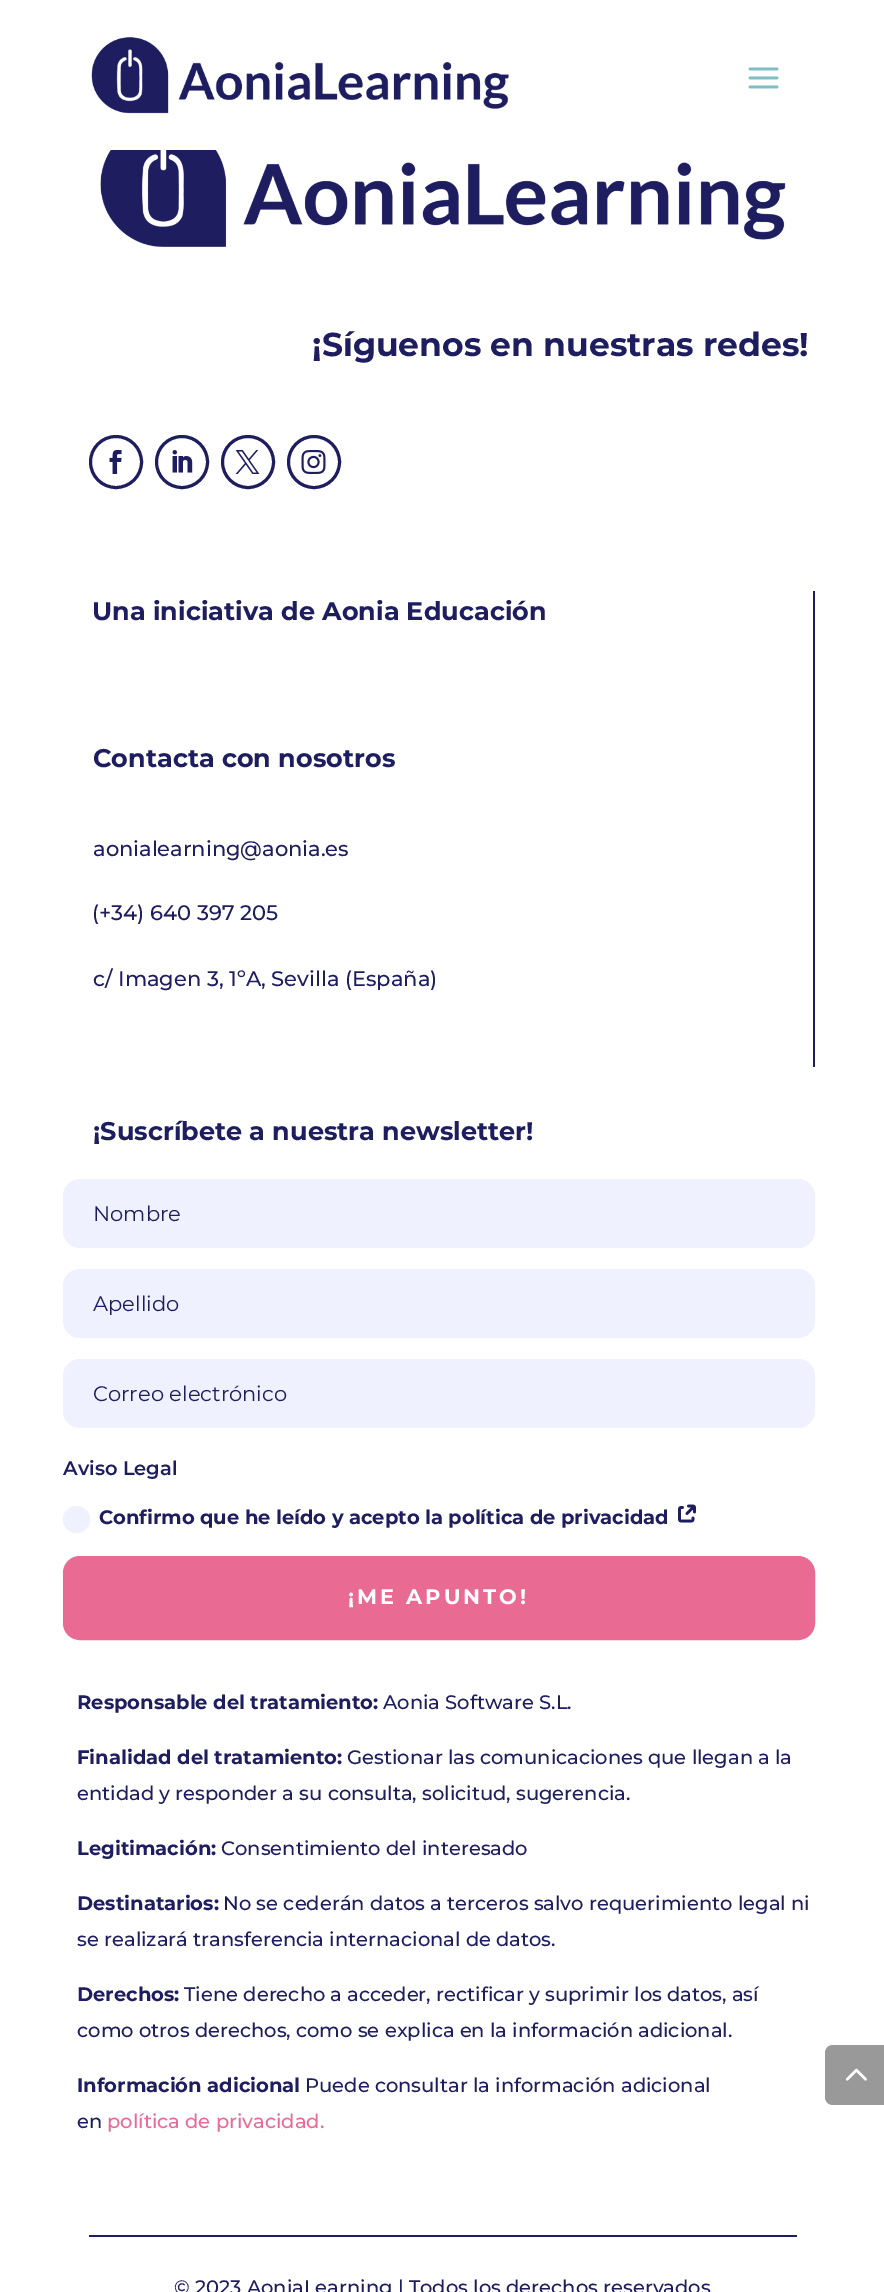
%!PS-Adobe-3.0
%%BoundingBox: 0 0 884 2292
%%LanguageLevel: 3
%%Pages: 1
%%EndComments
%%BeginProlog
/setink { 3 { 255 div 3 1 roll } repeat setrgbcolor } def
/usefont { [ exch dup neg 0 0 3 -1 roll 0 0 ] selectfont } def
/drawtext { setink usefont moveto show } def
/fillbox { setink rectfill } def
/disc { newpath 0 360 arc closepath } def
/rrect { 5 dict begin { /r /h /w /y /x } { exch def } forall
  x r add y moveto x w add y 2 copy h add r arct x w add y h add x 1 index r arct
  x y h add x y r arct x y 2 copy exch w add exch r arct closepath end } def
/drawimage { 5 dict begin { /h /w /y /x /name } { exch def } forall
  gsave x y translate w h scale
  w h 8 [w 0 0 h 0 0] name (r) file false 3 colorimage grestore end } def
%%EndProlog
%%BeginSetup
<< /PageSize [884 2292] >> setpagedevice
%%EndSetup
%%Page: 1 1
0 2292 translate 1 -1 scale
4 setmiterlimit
0 0 884 2292 255 255 255 fillbox
(assets/img1.rgb) 91 37 418 77 drawimage
(assets/img2.rgb) 748 67 31 22 drawimage
(assets/img3.rgb) 100 150 686 97 drawimage
(¡Síguenos en nuestras redes!) 312 356 /Montserrat-Thin 33 29 29 96 drawtext
3 setlinewidth
116 462 25.5 disc stroke
(assets/img4.rgb) 109 450 13 24 drawimage
182 462 25.5 disc stroke
(assets/img5.rgb) 172 450 21 23 drawimage
248 462 25.5 disc stroke
(assets/img6.rgb) 235 450 25 24 drawimage
314 462 25.5 disc stroke
(assets/img7.rgb) 301 450 25 24 drawimage
813 591 2 476 29 29 96 fillbox
(Una iniciativa de Aonia Educación) 92 620 /Montserrat-Thin 25.5 29 29 96 drawtext
(Contacta con nosotros) 93 767 /Montserrat-Thin 25.5 29 29 96 drawtext
(aonialearning@aonia.es) 93 856 /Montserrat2-Thin 21 29 29 96 drawtext
(\(+34\) 640 397 205) 92 920 /Montserrat2-Thin 21 29 29 96 drawtext
(c/ Imagen 3, 1ºA, Sevilla \(España\)) 93 986 /Montserrat2-Thin 21 29 29 96 drawtext
(¡Suscríbete a nuestra newsletter!) 93 1140 /Montserrat-Thin 25.5 29 29 96 drawtext
239 241 255 setink
63 1179 752 69 17 rrect fill
(Nombre) 93 1221 /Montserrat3-Thin 21 29 29 96 drawtext
239 241 255 setink
63 1269 752 69 17 rrect fill
(Apellido) 93 1311 /Montserrat3-Thin 21 29 29 96 drawtext
239 241 255 setink
63 1359 752 69 17 rrect fill
(Correo electrónico) 93 1401 /Montserrat3-Thin 21 29 29 96 drawtext
(Aviso Legal) 63 1475 /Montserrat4-Thin 19.5 29 29 96 drawtext
239 241 255 setink
76.5 1519.5 13.5 disc fill
(Confirmo que he leído y acepto la política de privacidad) 99 1524 /Montserrat-Thin 19.5 29 29 96 drawtext
(assets/img8.rgb) 678 1504 18 19 drawimage
233 107 148 setink
72 1565 734 66 8 rrect gsave fill grestore
18 setlinewidth
stroke
/Montserrat-Thin 21 usefont
255 255 255 setink
348 1604 moveto 3 0 (¡ME APUNTO!) ashow
(Responsable del tratamiento:) 77 1709 /Montserrat-Thin 19.5 29 29 96 drawtext
(Aonia Software S.L.) 383 1709 /Montserrat2-Thin 19.5 29 29 96 drawtext
(Finalidad del tratamiento:) 77 1764 /Montserrat-Thin 19.5 29 29 96 drawtext
(Gestionar las comunicaciones que llegan a la) 347 1764 /Montserrat2-Thin 19.5 29 29 96 drawtext
(entidad y responder a su consulta, solicitud, sugerencia.) 77 1800 /Montserrat2-Thin 19.5 29 29 96 drawtext
(Legitimación:) 77 1855 /Montserrat-Thin 19.5 29 29 96 drawtext
(Consentimiento del interesado) 221 1855 /Montserrat2-Thin 19.5 29 29 96 drawtext
(Destinatarios:) 77 1910 /Montserrat-Thin 19.5 29 29 96 drawtext
(No se cederán datos a terceros salvo requerimiento legal ni) 223 1910 /Montserrat2-Thin 19.5 29 29 96 drawtext
(se realizará transferencia internacional de datos.) 77 1946 /Montserrat2-Thin 19.5 29 29 96 drawtext
(Derechos:) 77 2001 /Montserrat-Thin 19.5 29 29 96 drawtext
(Tiene derecho a acceder, rectificar y suprimir los datos, así) 184 2001 /Montserrat2-Thin 19.5 29 29 96 drawtext
(como otros derechos, como se explica en la información adicional.) 77 2037 /Montserrat2-Thin 19.5 29 29 96 drawtext
(Información adicional) 77 2092 /Montserrat-Thin 19.5 29 29 96 drawtext
(Puede consultar la información adicional) 305 2092 /Montserrat2-Thin 19.5 29 29 96 drawtext
(en) 77 2128 /Montserrat2-Thin 19.5 29 29 96 drawtext
(política de privacidad.) 107 2128 /Montserrat2-Thin 19.5 233 107 148 drawtext
89 2235 708 2 29 29 96 fillbox
(© 2023 AoniaLearning | Todos los derechos reservados) 174 2294 /Montserrat2-Thin 19.5 29 29 96 drawtext
153 153 153 setink
833 2045 moveto 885 2045 lineto 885 2105 lineto 833 2105 lineto 828.5 2105 825 2101.5 825 2097 curveto 825 2053 lineto 825 2048.5 828.5 2045 833 2045 curveto closepath fill
(assets/img9.rgb) 845 2068 22 13 drawimage
showpage
%%EOF
